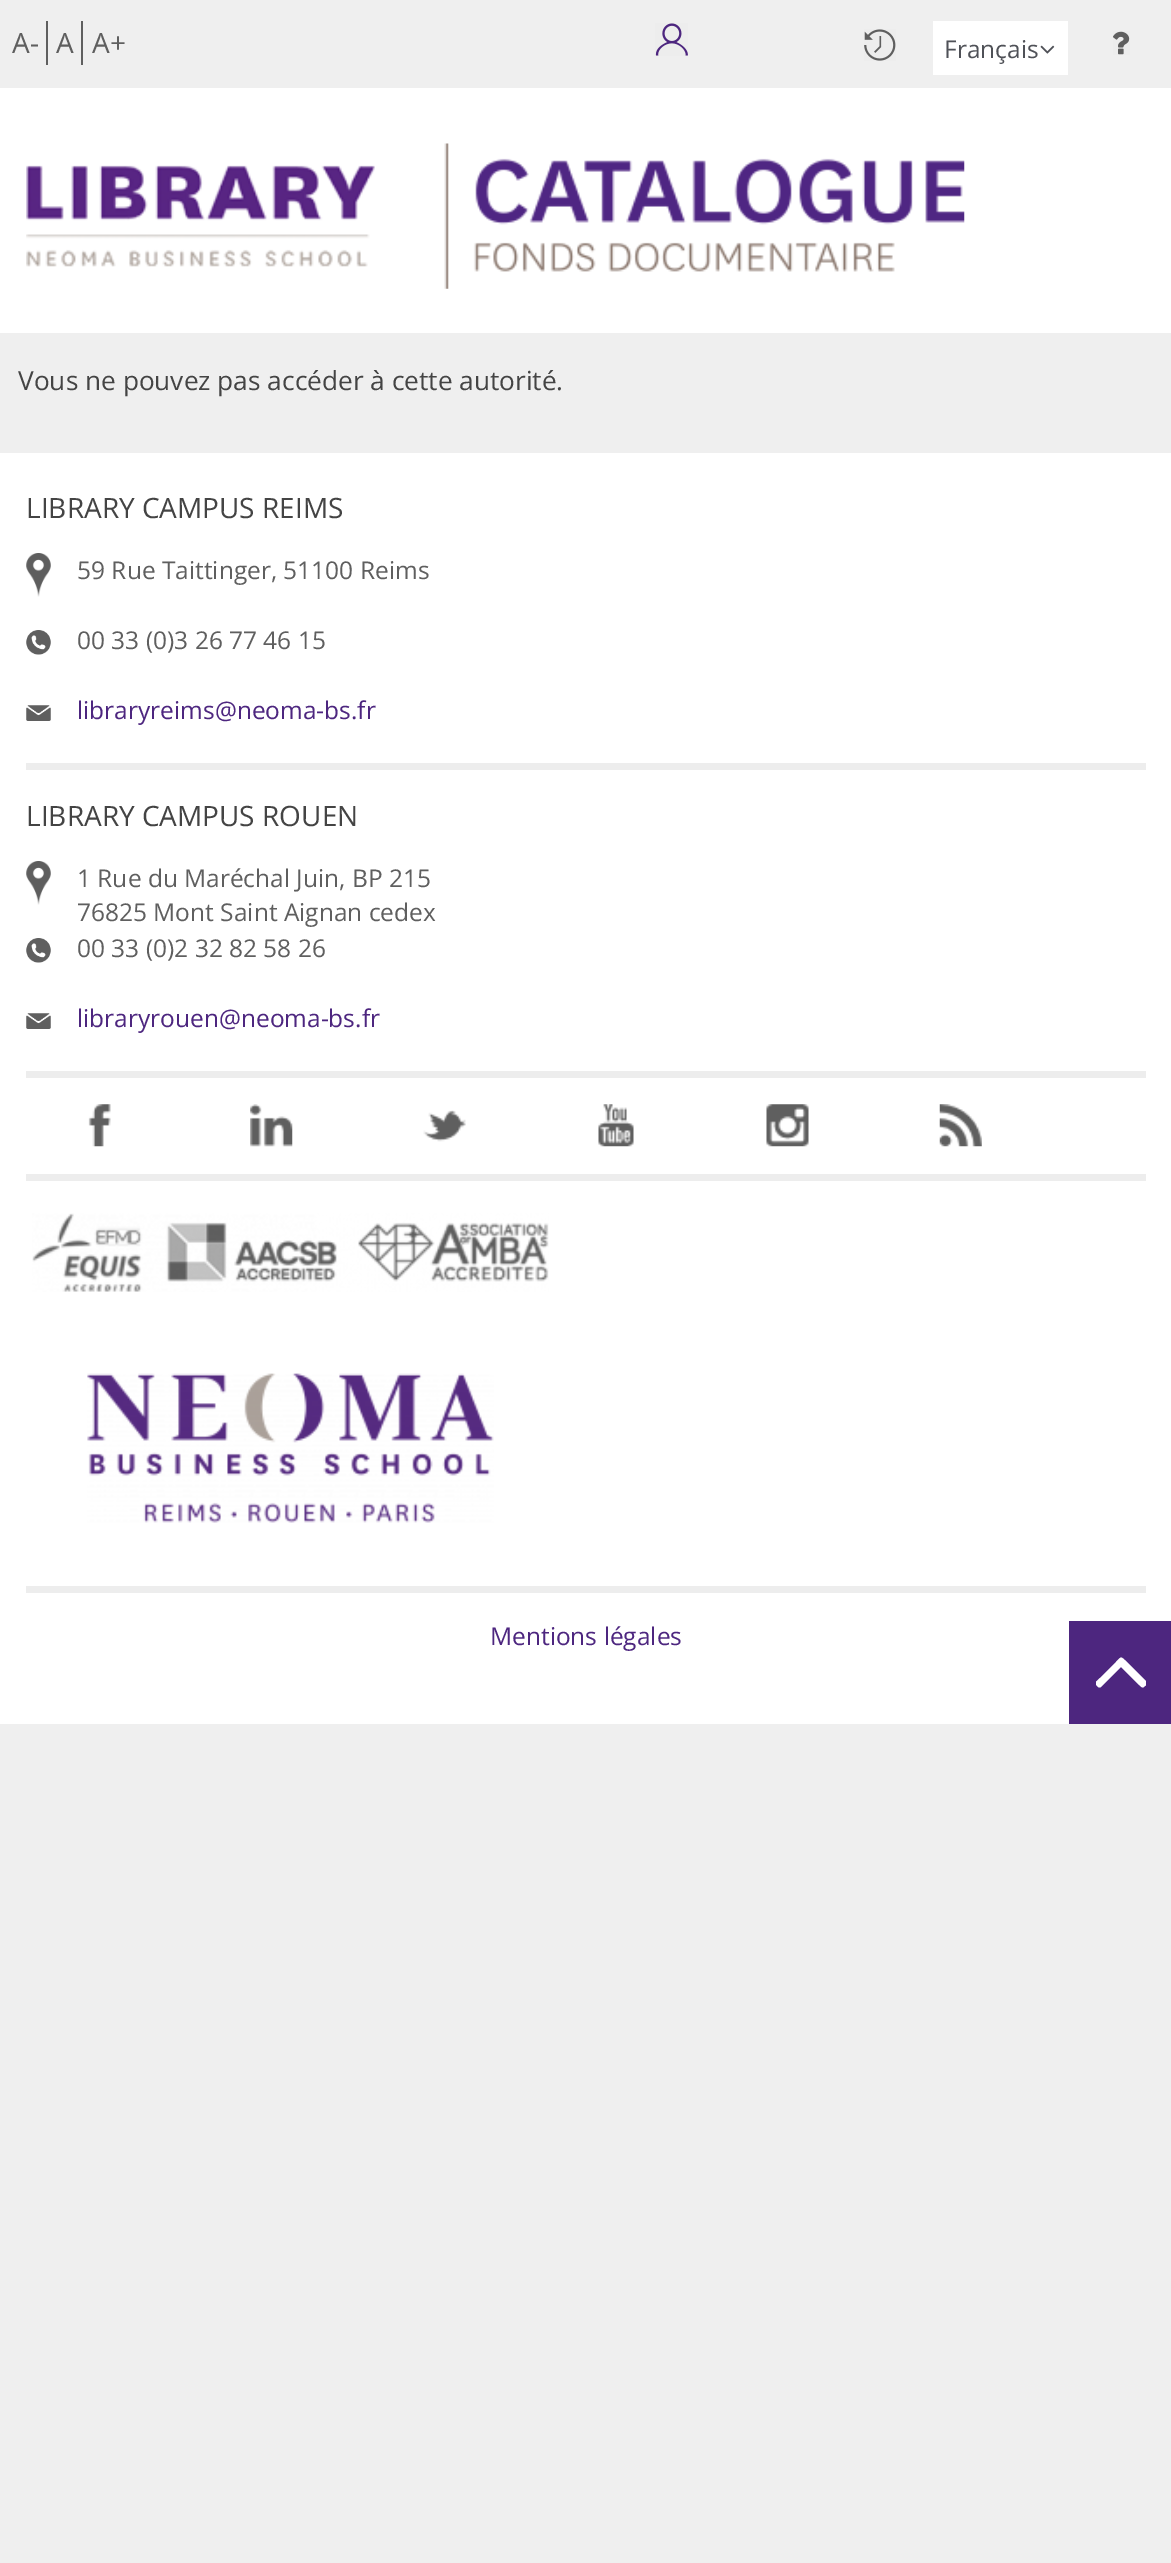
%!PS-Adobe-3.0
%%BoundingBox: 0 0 1171 2563
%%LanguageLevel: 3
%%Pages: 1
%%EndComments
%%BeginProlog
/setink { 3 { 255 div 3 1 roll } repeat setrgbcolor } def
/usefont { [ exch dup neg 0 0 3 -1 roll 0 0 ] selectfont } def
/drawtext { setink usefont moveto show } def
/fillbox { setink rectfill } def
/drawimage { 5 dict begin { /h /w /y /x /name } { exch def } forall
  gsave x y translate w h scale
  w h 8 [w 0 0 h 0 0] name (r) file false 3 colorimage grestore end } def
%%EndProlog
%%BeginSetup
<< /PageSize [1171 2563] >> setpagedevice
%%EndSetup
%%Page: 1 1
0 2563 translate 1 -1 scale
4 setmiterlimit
0 0 1171 2563 239 239 239 fillbox
(A-) 12 53 /OpenSans-Regular 28 95 95 95 drawtext
46 21 2 44 95 95 95 fillbox
(A) 56 53 /OpenSans-Regular 28 95 95 95 drawtext
81 21 2 44 95 95 95 fillbox
(A+) 92 53 /OpenSans-Regular 28 95 95 95 drawtext
(assets/img1.rgb) 655 23 33 33 drawimage
(assets/img2.rgb) 864 29 32 32 drawimage
933 21 135 54 255 255 255 fillbox
(Français) 944 58 /OpenSans-Regular 24.5 79 81 87 drawtext
(assets/img3.rgb) 1040 45 15 9 drawimage
(assets/img4.rgb) 1113 31 17 24 drawimage
0 88 1171 245 255 255 255 fillbox
(assets/img5.rgb) 26 143 939 146 drawimage
(Vous ne pouvez pas accéder à cette autorité.) 18 390 /OpenSans-Regular 26.25 68 68 68 drawtext
0 453 1171 1271 255 255 255 fillbox
26 763 1120 7 237 237 237 fillbox
(LIBRARY CAMPUS REIMS) 26 518 /OpenSans-Regular 28 68 68 68 drawtext
(assets/img6.rgb) 26 553 25 44 drawimage
(59 Rue Taittinger, 51100 Reims) 77 579 /OpenSans-Regular 24.5 95 95 95 drawtext
(assets/img7.rgb) 26 630 25 25 drawimage
(00 33 \(0\)3 26 77 46 15) 77 649 /OpenSans-Regular 24.5 95 95 95 drawtext
(assets/img8.rgb) 26 705 25 16 drawimage
(libraryreims@neoma-bs.fr) 77 719 /OpenSans-Regular 24.5 77 38 127 drawtext
26 1071 1120 7 237 237 237 fillbox
(LIBRARY CAMPUS ROUEN) 26 826 /OpenSans-Regular 28 68 68 68 drawtext
(assets/img6.rgb) 26 861 25 44 drawimage
(1 Rue du Maréchal Juin, BP 215) 77 887 /OpenSans-Regular 24.5 95 95 95 drawtext
(76825 Mont Saint Aignan cedex) 77 921 /OpenSans-Regular 24.5 95 95 95 drawtext
(assets/img7.rgb) 26 938 25 25 drawimage
(00 33 \(0\)2 32 82 58 26) 77 957 /OpenSans-Regular 24.5 95 95 95 drawtext
(assets/img8.rgb) 26 1013 25 16 drawimage
(libraryrouen@neoma-bs.fr) 77 1027 /OpenSans-Regular 24.5 77 38 127 drawtext
26 1174 1120 7 237 237 237 fillbox
(assets/img9.rgb) 88 1104 23 43 drawimage
(assets/img10.rgb) 250 1104 43 43 drawimage
(assets/img11.rgb) 423 1110 43 32 drawimage
(assets/img12.rgb) 598 1104 36 43 drawimage
(assets/img13.rgb) 766 1104 43 43 drawimage
(assets/img14.rgb) 939 1104 43 43 drawimage
26 1586 1120 7 237 237 237 fillbox
(assets/img15.rgb) 32 1213 517 79 drawimage
(assets/img16.rgb) 87 1373 407 150 drawimage
(Mentions légales) 490 1645 /OpenSans-Regular 24.5 77 38 127 drawtext
1069 1621 102 103 77 38 127 fillbox
gsave
1096 1647 50 51 rectclip
255 255 255 setink
1147 1682 moveto 1127 1662 lineto 1120 1656 1122 1656 1116 1662 curveto 1100 1678 lineto 1096 1682 1094 1682 1097 1686 curveto 1098 1687 1099 1688 1101 1687 curveto 1121 1667 lineto 1138 1684 lineto 1142 1687 1142 1689 1145 1686 curveto 1146 1685 1148 1684 1147 1682 curveto closepath fill
grestore
showpage
%%EOF
